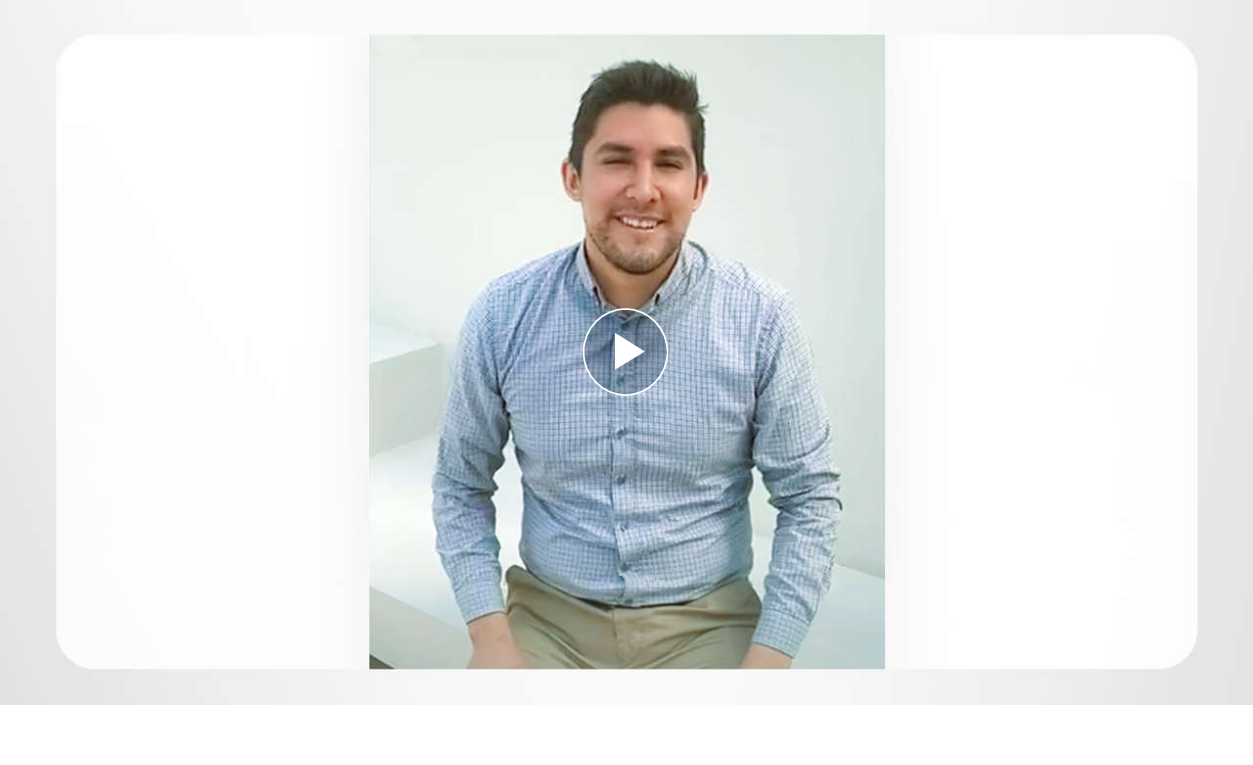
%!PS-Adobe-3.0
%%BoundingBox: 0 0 1253 765
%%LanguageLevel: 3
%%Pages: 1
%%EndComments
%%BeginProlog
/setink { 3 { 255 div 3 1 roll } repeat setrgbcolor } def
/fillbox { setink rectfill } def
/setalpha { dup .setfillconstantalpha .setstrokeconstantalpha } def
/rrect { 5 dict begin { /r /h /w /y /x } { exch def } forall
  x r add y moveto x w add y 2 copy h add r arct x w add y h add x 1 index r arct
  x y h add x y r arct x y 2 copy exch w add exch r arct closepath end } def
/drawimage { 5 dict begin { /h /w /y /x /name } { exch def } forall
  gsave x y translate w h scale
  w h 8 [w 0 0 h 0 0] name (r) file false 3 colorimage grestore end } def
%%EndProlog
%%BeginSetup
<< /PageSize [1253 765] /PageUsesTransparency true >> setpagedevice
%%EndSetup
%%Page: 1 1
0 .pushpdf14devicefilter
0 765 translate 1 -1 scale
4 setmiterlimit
0 0 1253 765 255 255 255 fillbox
(assets/img1.rgb) 0 0 1253 705 drawimage
0.3 setalpha
24 50 76 setink
625.5 309 moveto 648.5 309 667.5 328.5 667.5 352 curveto 667.5 375.5 648.5 395 625.5 395 curveto 602.5 395 583.5 375.5 583.5 352 curveto 583.5 328.5 602.5 309 625.5 309 curveto closepath fill
gsave
583 308 85 88 rectclip
583 308 88 88 44 rrect clip newpath
1 setalpha
255 255 255 setink
1.4 setlinewidth
625.5 309 moveto 648.5 309 667.5 328.5 667.5 352 curveto 667.5 375.5 648.5 395 625.5 395 curveto 602.5 395 583.5 375.5 583.5 352 curveto 583.5 328.5 602.5 309 625.5 309 curveto closepath stroke
grestore
1 setalpha
255 255 255 setink
644.5 351.5 moveto 615 333 lineto 615 369.5 lineto closepath fill
.poppdf14devicefilter showpage
%%EOF
